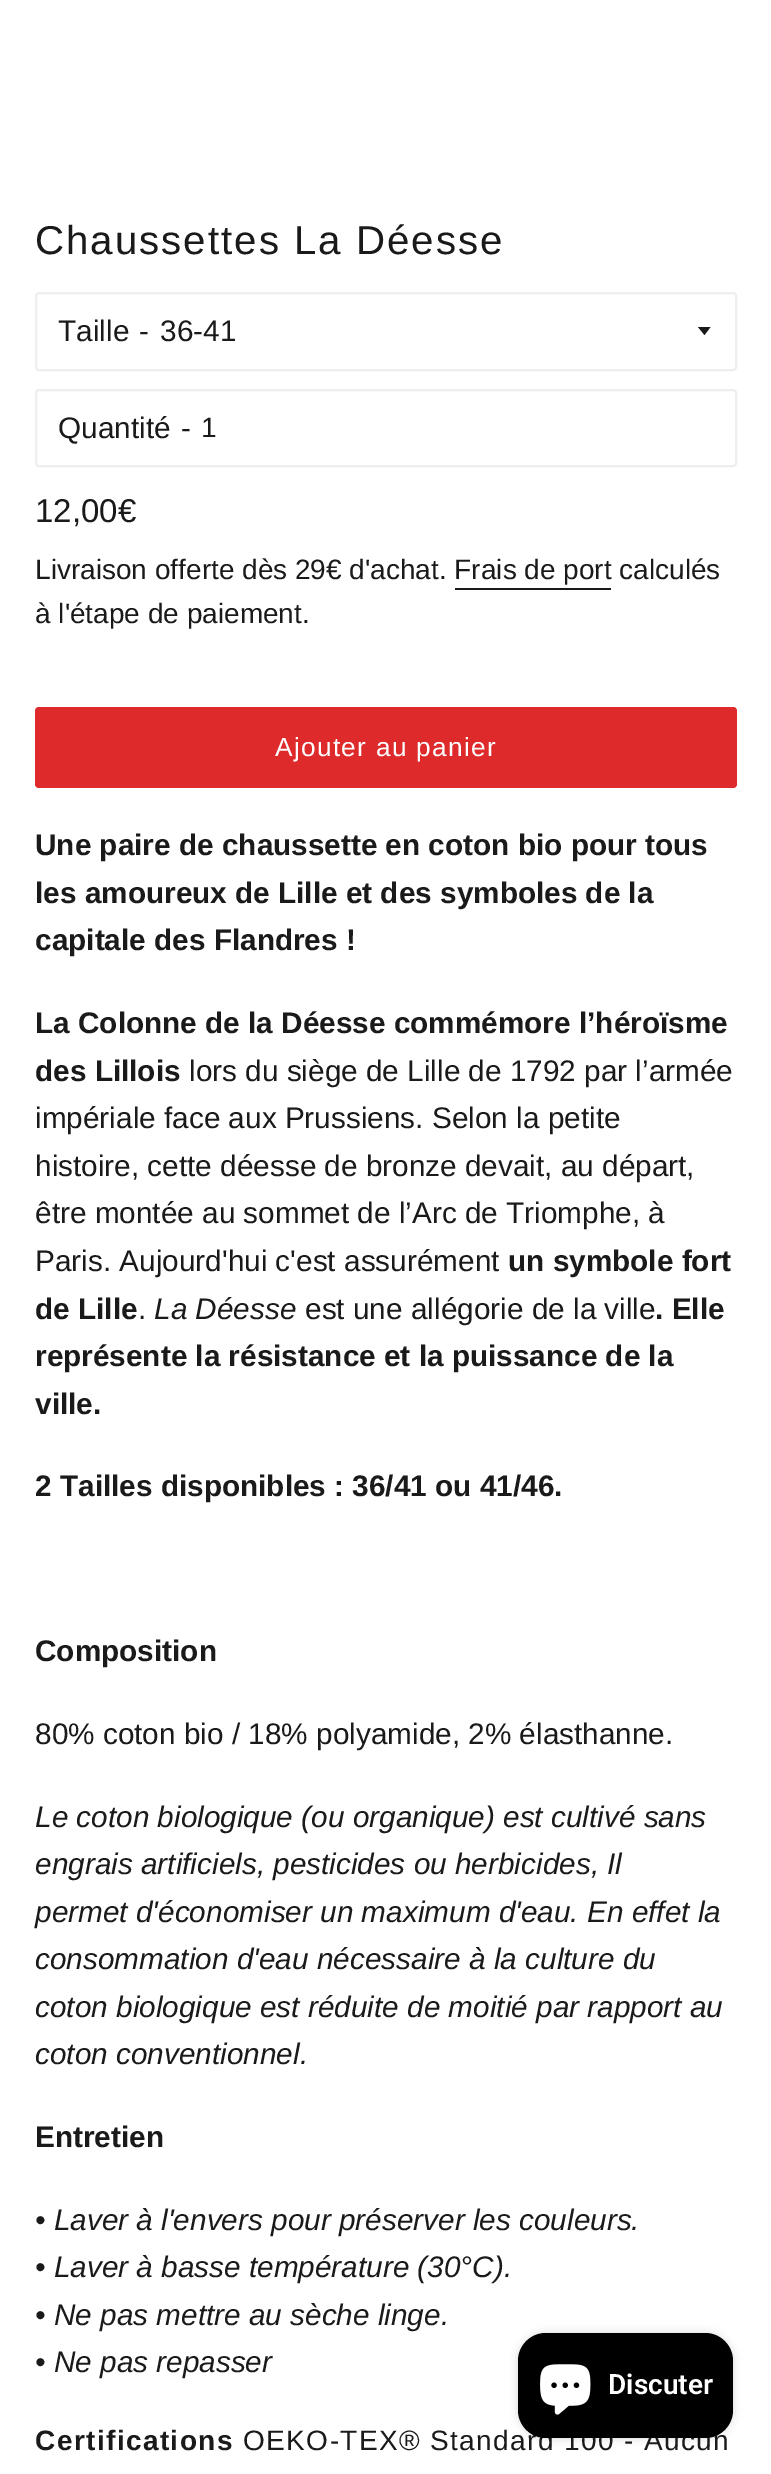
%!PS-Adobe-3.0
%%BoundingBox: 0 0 771 2474
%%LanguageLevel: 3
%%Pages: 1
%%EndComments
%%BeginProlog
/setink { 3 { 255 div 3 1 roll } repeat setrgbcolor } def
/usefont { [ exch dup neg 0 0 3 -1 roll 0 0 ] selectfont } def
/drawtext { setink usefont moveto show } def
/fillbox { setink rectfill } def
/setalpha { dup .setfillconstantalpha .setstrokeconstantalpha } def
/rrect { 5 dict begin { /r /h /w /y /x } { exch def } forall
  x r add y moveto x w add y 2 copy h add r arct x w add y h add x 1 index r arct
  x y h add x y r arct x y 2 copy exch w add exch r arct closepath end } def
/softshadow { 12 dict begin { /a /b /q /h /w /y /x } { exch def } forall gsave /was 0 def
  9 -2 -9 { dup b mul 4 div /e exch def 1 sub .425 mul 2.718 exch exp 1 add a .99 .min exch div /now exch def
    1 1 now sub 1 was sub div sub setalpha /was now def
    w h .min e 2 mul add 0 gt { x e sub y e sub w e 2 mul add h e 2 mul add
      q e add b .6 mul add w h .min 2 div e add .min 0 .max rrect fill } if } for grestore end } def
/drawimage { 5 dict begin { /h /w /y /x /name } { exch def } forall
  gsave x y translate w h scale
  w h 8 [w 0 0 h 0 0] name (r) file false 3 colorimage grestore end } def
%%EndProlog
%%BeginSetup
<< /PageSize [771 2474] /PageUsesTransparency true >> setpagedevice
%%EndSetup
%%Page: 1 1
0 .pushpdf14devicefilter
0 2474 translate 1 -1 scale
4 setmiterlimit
0 0 771 2474 255 255 255 fillbox
/LiberationSans-Regular 40.25 usefont
26 26 26 setink
35 254 moveto 2 0 (Chaussettes La Déesse) ashow
238 238 238 setink
2 setlinewidth
36 293 700 77 3 rrect stroke
(Taille) 58 341 /LiberationSans-Regular 29.75 26 26 26 drawtext
(-) 139 341 /LiberationSans-Regular 29.75 26 26 26 drawtext
698 327 moveto 704.5 335 lineto 710.5 327 lineto closepath fill
(36-41) 160 341 /LiberationSans-Regular 29.75 26 26 26 drawtext
238 238 238 setink
36 390 700 76 3 rrect stroke
(Quantité) 58 438 /LiberationSans-Regular 29.75 26 26 26 drawtext
(-) 181 438 /LiberationSans-Regular 29.75 26 26 26 drawtext
(1) 201 437 /LiberationSans-Regular 28 26 26 26 drawtext
(12,00€) 35 522 /LiberationSans-Regular 33 26 26 26 drawtext
(Livraison offerte dès 29€ d'achat. Frais de port calculés) 35 579 /LiberationSans-Regular 28 26 26 26 drawtext
455 588 156 2 26 26 26 fillbox
(à l'étape de paiement.) 35 623 /LiberationSans-Regular 28 26 26 26 drawtext
222 42 42 setink
35 707 702 81 4 rrect fill
/LiberationSans-Regular 26.25 usefont
255 255 255 setink
275 756 moveto 1.3 0 (Ajouter au panier) ashow
(Une paire de chaussette en coton bio pour tous) 35 855 /LiberationSans-Bold 29.75 26 26 26 drawtext
(les amoureux de Lille et des symboles de la) 35 903 /LiberationSans-Bold 29.75 26 26 26 drawtext
(capitale des Flandres !) 35 950 /LiberationSans-Bold 29.75 26 26 26 drawtext
(La Colonne de la Déesse commémore l’héroïsme) 35 1033 /LiberationSans-Bold 29.75 26 26 26 drawtext
(des Lillois) 35 1081 /LiberationSans-Bold 29.75 26 26 26 drawtext
(lors du siège de Lille de 1792 par l’armée) 189 1081 /LiberationSans-Regular 29.75 26 26 26 drawtext
(impériale face aux Prussiens. Selon la petite) 35 1128 /LiberationSans-Regular 29.75 26 26 26 drawtext
(histoire, cette déesse de bronze devait, au départ,) 35 1176 /LiberationSans-Regular 29.75 26 26 26 drawtext
(être montée au sommet de l’Arc de Triomphe, à) 35 1223 /LiberationSans-Regular 29.75 26 26 26 drawtext
(Paris. Aujourd'hui c'est assurément) 35 1271 /LiberationSans-Regular 29.75 26 26 26 drawtext
(un symbole fort) 508 1271 /LiberationSans-Bold 29.75 26 26 26 drawtext
(de Lille) 35 1319 /LiberationSans-Bold 29.75 26 26 26 drawtext
(.) 138 1319 /LiberationSans-Regular 29.75 26 26 26 drawtext
(La Déesse) 154 1319 /LiberationSans-Italic 29.75 26 26 26 drawtext
(est une allégorie de la ville) 305 1319 /LiberationSans-Regular 29.75 26 26 26 drawtext
(. Elle) 655 1319 /LiberationSans-Bold 29.75 26 26 26 drawtext
(représente la résistance et la puissance de la) 35 1366 /LiberationSans-Bold 29.75 26 26 26 drawtext
(ville.) 35 1414 /LiberationSans-Bold 29.75 26 26 26 drawtext
(2 Tailles disponibles : 36/41 ou 41/46.) 35 1496 /LiberationSans-Bold 29.75 26 26 26 drawtext
(Composition) 35 1661 /LiberationSans-Bold 29.75 26 26 26 drawtext
(80% coton bio / 18% polyamide, 2% élasthanne.) 35 1744 /LiberationSans-Regular 29.75 26 26 26 drawtext
(Le coton biologique \(ou organique\) est cultivé sans) 35 1827 /LiberationSans-Italic 29.75 26 26 26 drawtext
(engrais artificiels, pesticides ou herbicides, Il) 35 1874 /LiberationSans-Italic 29.75 26 26 26 drawtext
(permet d'économiser un maximum d'eau. En effet la) 35 1922 /LiberationSans-Italic 29.75 26 26 26 drawtext
(consommation d'eau nécessaire à la culture du) 35 1969 /LiberationSans-Italic 29.75 26 26 26 drawtext
(coton biologique est réduite de moitié par rapport au) 35 2017 /LiberationSans-Italic 29.75 26 26 26 drawtext
(coton conventionnel.) 35 2064 /LiberationSans-Italic 29.75 26 26 26 drawtext
(Entretien) 35 2147 /LiberationSans-Bold 29.75 26 26 26 drawtext
(• Laver à l'envers pour préserver les couleurs.) 35 2230 /LiberationSans-Italic 29.75 26 26 26 drawtext
(• Laver à basse température \(30°C\).) 35 2277 /LiberationSans-Italic 29.75 26 26 26 drawtext
(• Ne pas mettre au sèche linge.) 35 2325 /LiberationSans-Italic 29.75 26 26 26 drawtext
(• Ne pas repasser) 35 2372 /LiberationSans-Italic 29.75 26 26 26 drawtext
/LiberationSans-Bold 28 usefont
35 2450 moveto 1.4 0 (Certifications) ashow
/LiberationSans-Regular 28 usefont
243 2450 moveto 1.4 0 (OEKO-TEX® Standard 100 - Aucun) ashow
0 0 0 setink
518 2333 215 105 28 4.5 0.15 softshadow
518 2333 215 105 28 rrect fill
(assets/img1.rgb) 540 2364 51 51 drawimage
(Discuter) 608 2394 /Roboto-SemiBold 28 255 255 255 drawtext
.poppdf14devicefilter showpage
%%EOF
